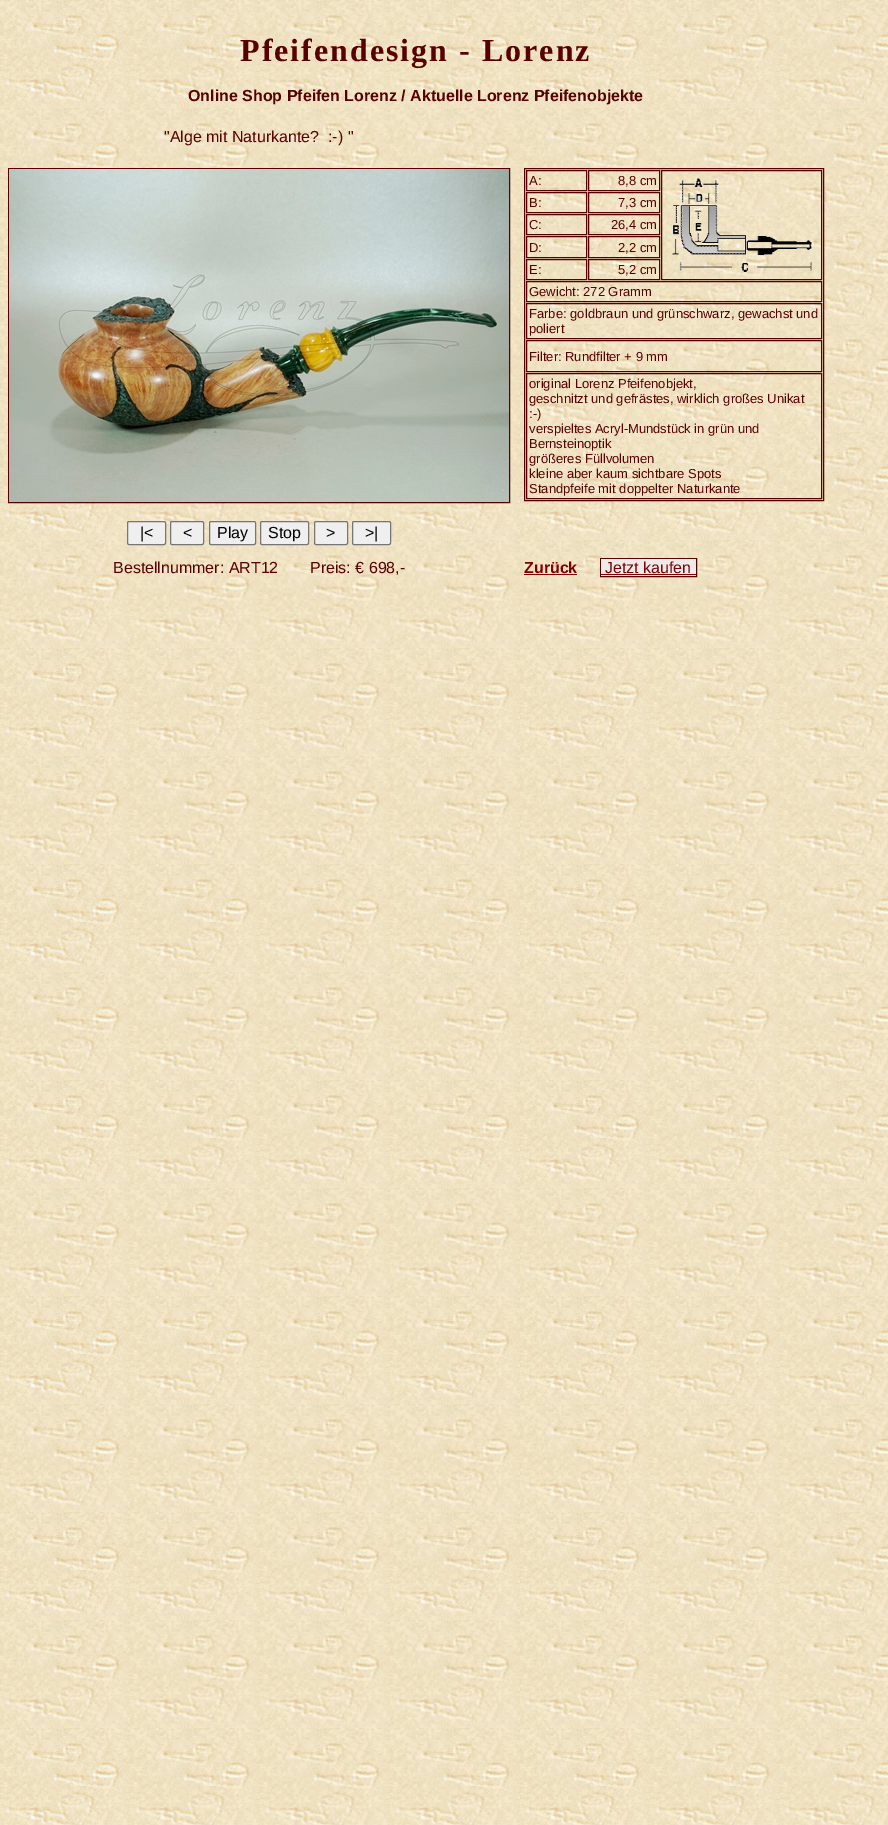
%!PS-Adobe-3.0
%%BoundingBox: 0 0 888 1825
%%LanguageLevel: 3
%%Pages: 1
%%EndComments
%%BeginProlog
/setink { 3 { 255 div 3 1 roll } repeat setrgbcolor } def
/usefont { [ exch dup neg 0 0 3 -1 roll 0 0 ] selectfont } def
/drawtext { setink usefont moveto show } def
/fillbox { setink rectfill } def
/rrect { 5 dict begin { /r /h /w /y /x } { exch def } forall
  x r add y moveto x w add y 2 copy h add r arct x w add y h add x 1 index r arct
  x y h add x y r arct x y 2 copy exch w add exch r arct closepath end } def
/drawimage { 5 dict begin { /h /w /y /x /name } { exch def } forall
  gsave x y translate w h scale
  w h 8 [w 0 0 h 0 0] name (r) file false 3 colorimage grestore end } def
%%EndProlog
%%BeginSetup
<< /PageSize [888 1825] >> setpagedevice
%%EndSetup
%%Page: 1 1
0 1825 translate 1 -1 scale
4 setmiterlimit
0 0 888 1825 255 255 255 fillbox
(assets/img1.rgb) 0 0 888 1825 drawimage
/LiberationSerif-Bold 32 usefont
87 0 0 setink
240 61 moveto 2 0 (Pfeifendesign - Lorenz) ashow
(Online Shop Pfeifen Lorenz / Aktuelle Lorenz Pfeifenobjekte) 188 101 /LiberationSans-Bold 16 87 0 0 drawtext
("Alge mit Naturkante?  :-\) ") 164 142 /LiberationSans-Regular 16 87 0 0 drawtext
524.5 168.5 299 332 rectstroke
526.5 170.5 60 20 rectstroke
(A:) 529 185 /LiberationSans-Regular 13 87 0 0 drawtext
588.5 170.5 71 20 rectstroke
(8,8 cm) 618 185 /LiberationSans-Regular 13 87 0 0 drawtext
661.5 170.5 160 109 rectstroke
(assets/img2.rgb) 672 178 140 94 drawimage
526.5 192.5 60 20 rectstroke
(B:) 529 207 /LiberationSans-Regular 13 87 0 0 drawtext
588.5 192.5 71 20 rectstroke
(7,3 cm) 618 207 /LiberationSans-Regular 13 87 0 0 drawtext
526.5 214.5 60 20 rectstroke
(C:) 529 229 /LiberationSans-Regular 13 87 0 0 drawtext
588.5 214.5 71 20 rectstroke
(26,4 cm) 611 229 /LiberationSans-Regular 13 87 0 0 drawtext
526.5 236.5 60 21 rectstroke
(D:) 529 252 /LiberationSans-Regular 13 87 0 0 drawtext
588.5 236.5 71 21 rectstroke
(2,2 cm) 618 252 /LiberationSans-Regular 13 87 0 0 drawtext
526.5 259.5 60 20 rectstroke
(E:) 529 274 /LiberationSans-Regular 13 87 0 0 drawtext
588.5 259.5 71 20 rectstroke
(5,2 cm) 618 274 /LiberationSans-Regular 13 87 0 0 drawtext
526.5 281.5 295 20 rectstroke
(Gewicht: 272 Gramm) 529 296 /LiberationSans-Regular 13 87 0 0 drawtext
526.5 303.5 295 35 rectstroke
(Farbe: goldbraun und grünschwarz, gewachst und) 529 318 /LiberationSans-Regular 13 87 0 0 drawtext
(poliert) 529 333 /LiberationSans-Regular 13 87 0 0 drawtext
526.5 340.5 295 31 rectstroke
(Filter: Rundfilter + 9 mm) 529 361 /LiberationSans-Regular 13 87 0 0 drawtext
526.5 373.5 295 125 rectstroke
(original Lorenz Pfeifenobjekt,) 529 388 /LiberationSans-Regular 13 87 0 0 drawtext
(geschnitzt und gefrästes, wirklich großes Unikat) 529 403 /LiberationSans-Regular 13 87 0 0 drawtext
(:-\)) 529 418 /LiberationSans-Regular 13 87 0 0 drawtext
(verspieltes Acryl-Mundstück in grün und) 529 433 /LiberationSans-Regular 13 87 0 0 drawtext
(Bernsteinoptik) 529 448 /LiberationSans-Regular 13 87 0 0 drawtext
(größeres Füllvolumen) 529 463 /LiberationSans-Regular 13 87 0 0 drawtext
(kleine aber kaum sichtbare Spots) 529 478 /LiberationSans-Regular 13 87 0 0 drawtext
(Standpfeife mit doppelter Naturkante) 529 493 /LiberationSans-Regular 13 87 0 0 drawtext
8.5 168.5 501 334 rectstroke
(assets/img3.rgb) 9 169 500 333 drawimage
239 239 239 setink
127.5 521.5 38 23 1.5 rrect gsave fill grestore
118 118 118 setink
stroke
(|<) 140 538 /LiberationSans-Regular 16 0 0 0 drawtext
239 239 239 setink
170.5 521.5 33 23 1.5 rrect gsave fill grestore
118 118 118 setink
stroke
(<) 183 538 /LiberationSans-Regular 16 0 0 0 drawtext
239 239 239 setink
209.5 521.5 46 23 1.5 rrect gsave fill grestore
118 118 118 setink
stroke
(Play) 217 538 /LiberationSans-Regular 16 0 0 0 drawtext
239 239 239 setink
260.5 521.5 48 23 1.5 rrect gsave fill grestore
118 118 118 setink
stroke
(Stop) 268 538 /LiberationSans-Regular 16 0 0 0 drawtext
239 239 239 setink
314.5 521.5 33 23 1.5 rrect gsave fill grestore
118 118 118 setink
stroke
(>) 326 538 /LiberationSans-Regular 16 0 0 0 drawtext
239 239 239 setink
352.5 521.5 38 23 1.5 rrect gsave fill grestore
118 118 118 setink
stroke
(>|) 365 538 /LiberationSans-Regular 16 0 0 0 drawtext
(Bestellnummer: ART12) 113 573 /LiberationSans-Regular 16 87 0 0 drawtext
(Preis: € 698,-) 310 573 /LiberationSans-Regular 16 87 0 0 drawtext
(Zurück) 524 573 /LiberationSans-Bold 16 128 0 0 drawtext
524 574 53 1 128 0 0 fillbox
87 0 0 setink
600.5 558.5 96 18 rectstroke
601 559 95 17 237 234 234 fillbox
(Jetzt kaufen) 605 573 /LiberationSans-Regular 16 128 0 0 drawtext
601 574 95 1 128 0 0 fillbox
showpage
%%EOF
